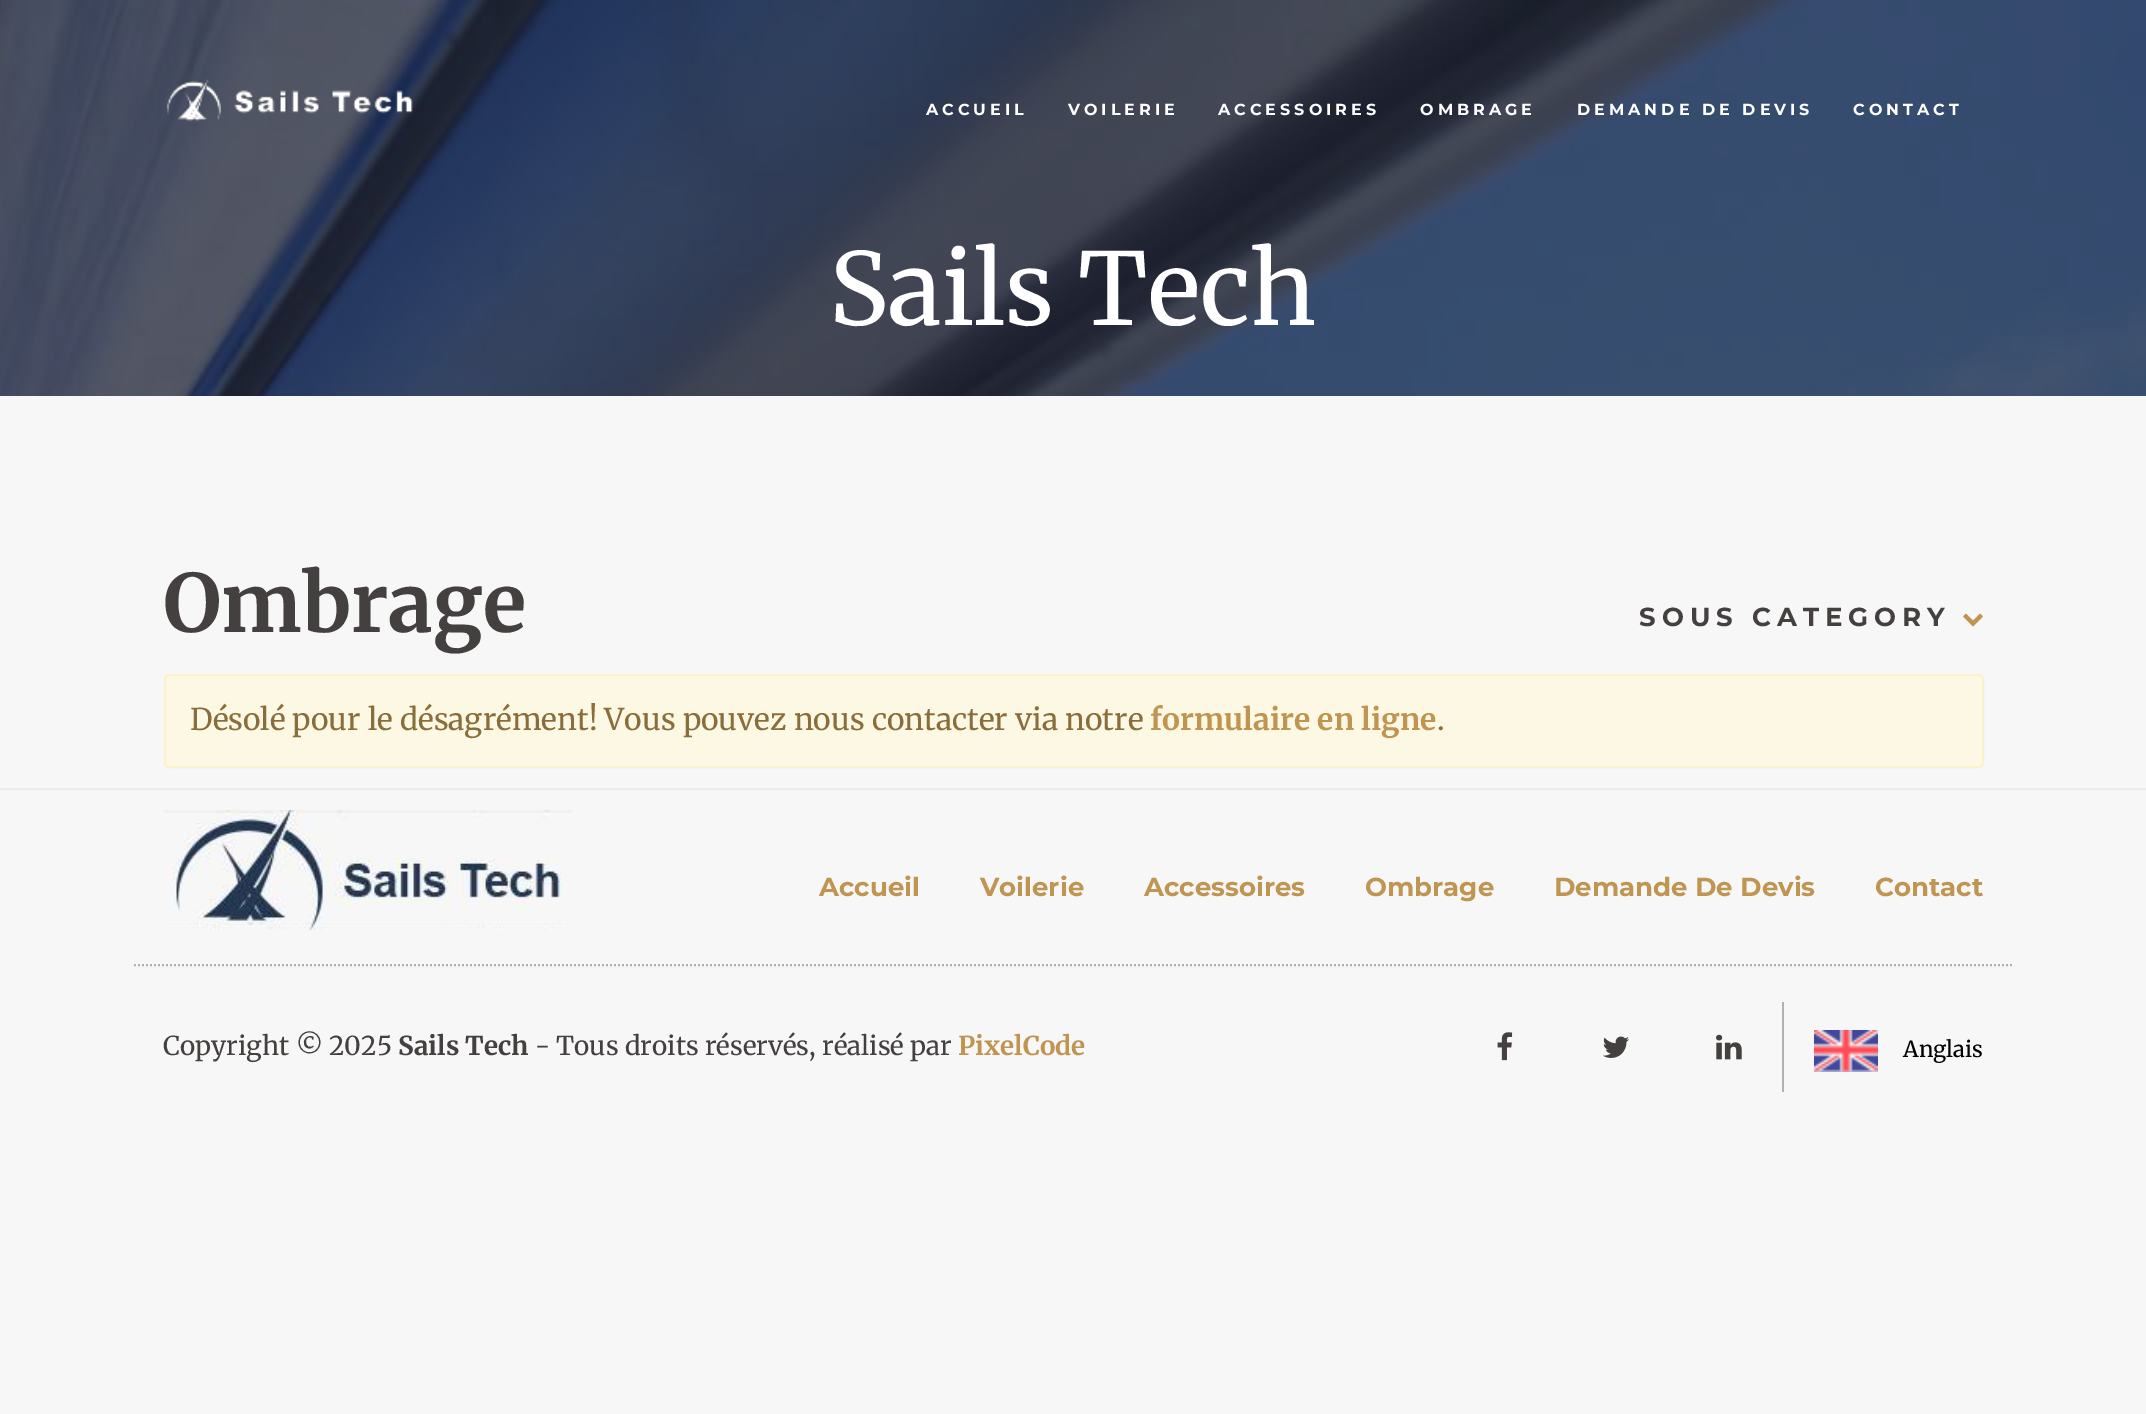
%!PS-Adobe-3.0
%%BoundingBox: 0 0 2146 1414
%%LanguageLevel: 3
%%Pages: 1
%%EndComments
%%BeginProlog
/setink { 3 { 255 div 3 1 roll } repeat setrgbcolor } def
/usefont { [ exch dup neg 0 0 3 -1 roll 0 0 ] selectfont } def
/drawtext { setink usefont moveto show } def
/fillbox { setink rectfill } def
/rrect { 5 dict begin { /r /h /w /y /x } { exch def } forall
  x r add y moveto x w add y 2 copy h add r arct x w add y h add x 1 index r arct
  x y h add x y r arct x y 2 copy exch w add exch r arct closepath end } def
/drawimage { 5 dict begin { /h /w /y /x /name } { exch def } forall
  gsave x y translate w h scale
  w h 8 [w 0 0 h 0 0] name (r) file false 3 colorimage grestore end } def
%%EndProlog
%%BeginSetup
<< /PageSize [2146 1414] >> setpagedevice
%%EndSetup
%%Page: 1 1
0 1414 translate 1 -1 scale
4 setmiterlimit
0 0 2146 1414 247 247 247 fillbox
(assets/img1.rgb) 0 0 2146 396 drawimage
(assets/img2.rgb) 166 78 247 44 drawimage
/Montserrat-Bold 16 usefont
255 255 255 setink
926 115 moveto 4 0 (ACCUEIL) ashow
1068 115 moveto 4 0 (VOILERIE) ashow
1218 115 moveto 4 0 (ACCESSOIRES) ashow
1420 115 moveto 4 0 (OMBRAGE) ashow
1577 115 moveto 4 0 (DEMANDE DE DEVIS) ashow
1853 115 moveto 4 0 (CONTACT) ashow
(Sails Tech) 829 325 /Merriweather-Regular 100 255 255 255 drawtext
(Ombrage) 163 632 /Merriweather-Bold 80 68 64 63 drawtext
/Montserrat-Bold 26 usefont
1639 626 moveto 6 0 (SOUS CATEGORY) ashow
(assets/img3.rgb) 1963 613 20 14 drawimage
252 248 227 setink
165 675 1818 92 4 rrect gsave fill grestore
250 242 204 setink
2 setlinewidth
stroke
(Désolé pour le désagrément! Vous pouvez nous contacter via notre) 190 730 /Merriweather-Regular 30 138 109 59 drawtext
(formulaire en ligne) 1150 730 /Merriweather-Bold 30 192 149 81 drawtext
(.) 1437 730 /Merriweather-Regular 30 138 109 59 drawtext
0 788 2146 2 235 235 235 fillbox
(assets/img4.rgb) 164 810 408 120 drawimage
(Accueil) 819 896 /Montserrat-Bold 26 192 149 81 drawtext
(Voilerie) 980 896 /Montserrat-Bold 26 192 149 81 drawtext
(Accessoires) 1144 896 /Montserrat-Bold 26 192 149 81 drawtext
(Ombrage) 1365 896 /Montserrat-Bold 26 192 149 81 drawtext
(Demande De Devis) 1554 896 /Montserrat-Bold 26 192 149 81 drawtext
(Contact) 1875 896 /Montserrat-Bold 26 192 149 81 drawtext
178 178 178 setink
[2 2] 0 setdash
134 965 moveto 2014 965 lineto stroke
(Copyright © 2025) 163 1055 /Merriweather-Regular 26 68 64 63 drawtext
(Sails Tech) 398 1055 /Merriweather-Bold 26 68 64 63 drawtext
(- Tous droits réservés, réalisé par) 535 1055 /Merriweather-Regular 26 68 64 63 drawtext
(PixelCode) 958 1055 /Merriweather-Bold 26 192 149 81 drawtext
(assets/img5.rgb) 1497 1032 16 29 drawimage
(assets/img6.rgb) 1603 1036 26 22 drawimage
(assets/img7.rgb) 1716 1034 26 26 drawimage
1782 1002 2 90 178 178 178 fillbox
(assets/img8.rgb) 1814 1030 64 42 drawimage
(Anglais) 1903 1057 /Merriweather-Regular 22 0 0 0 drawtext
showpage
%%EOF
